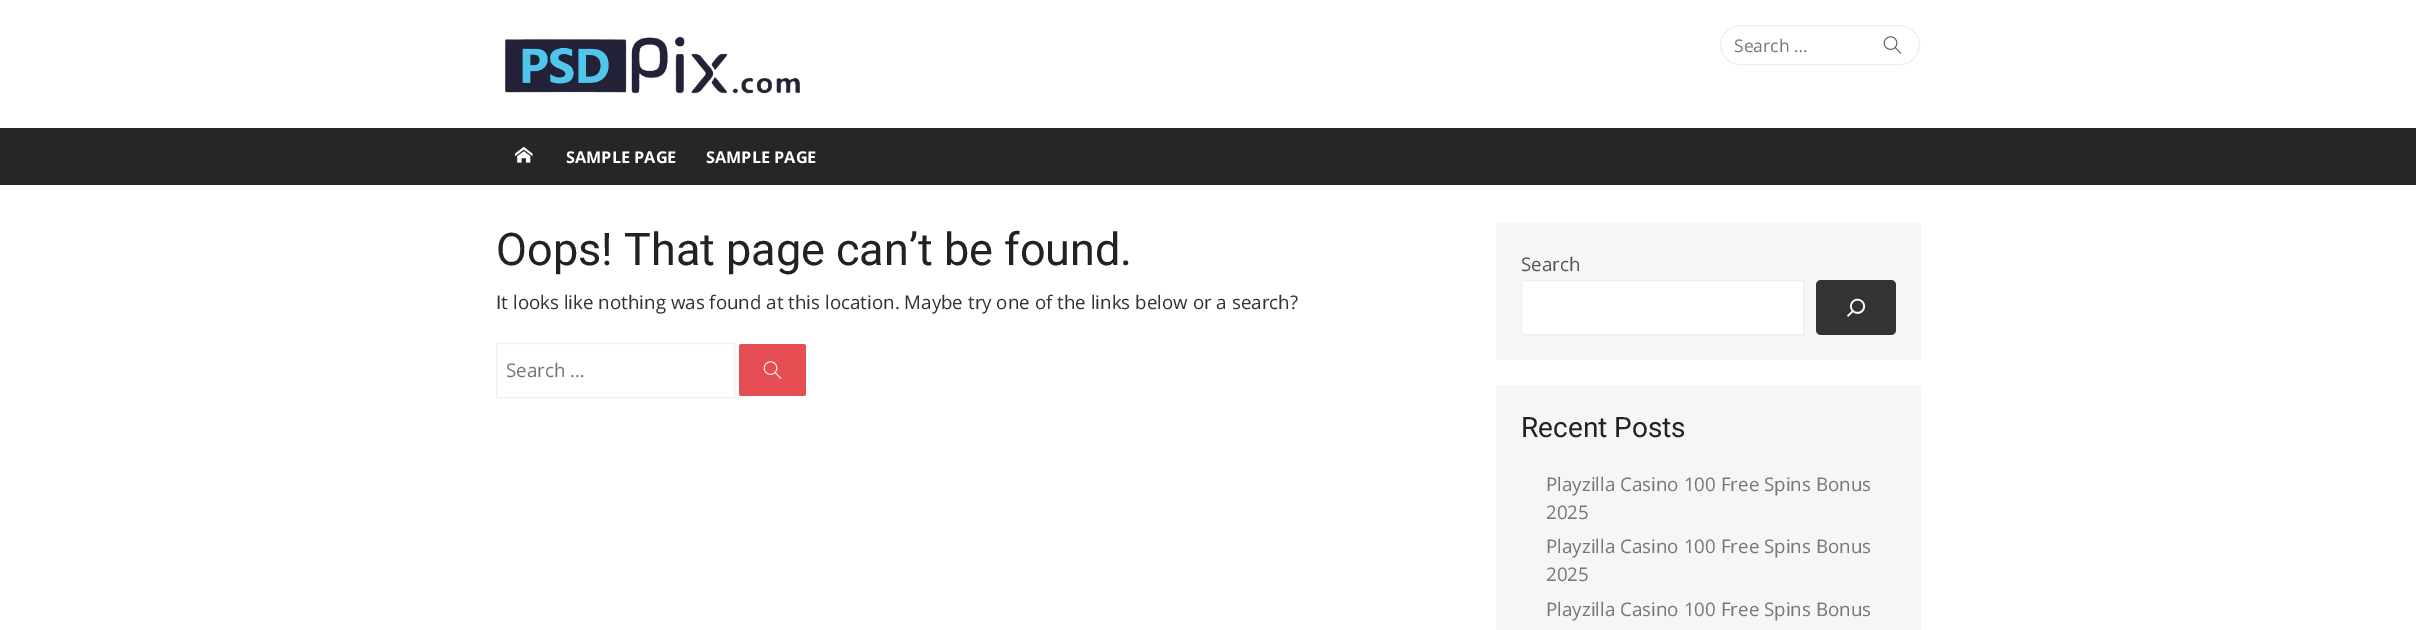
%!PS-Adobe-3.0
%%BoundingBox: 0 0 2416 630
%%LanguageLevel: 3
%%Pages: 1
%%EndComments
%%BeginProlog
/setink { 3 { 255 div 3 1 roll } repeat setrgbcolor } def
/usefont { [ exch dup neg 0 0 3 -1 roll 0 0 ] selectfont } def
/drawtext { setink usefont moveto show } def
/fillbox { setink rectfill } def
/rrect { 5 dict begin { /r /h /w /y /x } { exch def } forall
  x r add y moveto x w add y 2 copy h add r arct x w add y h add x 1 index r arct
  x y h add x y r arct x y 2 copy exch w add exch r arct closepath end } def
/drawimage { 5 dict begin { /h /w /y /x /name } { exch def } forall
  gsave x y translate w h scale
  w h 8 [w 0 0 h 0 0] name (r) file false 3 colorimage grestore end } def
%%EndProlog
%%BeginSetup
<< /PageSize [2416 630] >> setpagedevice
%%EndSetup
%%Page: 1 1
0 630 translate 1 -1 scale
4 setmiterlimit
0 0 2416 630 255 255 255 fillbox
(assets/img1.rgb) 505 36 295 58 drawimage
238 238 238 setink
1720.5 25.5 199 39 19.5 rrect stroke
(Search …) 1734 52 /OpenSans-Regular 17.5 119 119 119 drawtext
(assets/img2.rgb) 1883 36 19 18 drawimage
0 128 2416 57 37 38 38 fillbox
(assets/img3.rgb) 515 146 18 17 drawimage
(SAMPLE PAGE) 566 163 /OpenSans-Bold 16.25 255 255 255 drawtext
(SAMPLE PAGE) 706 163 /OpenSans-Bold 16.25 255 255 255 drawtext
(Oops! That page can’t be found.) 496 265 /Roboto-Regular 45 34 34 34 drawtext
(It looks like nothing was found at this location. Maybe try one of the links below or a search?) 496 309 /OpenSans-Regular 18.75 51 51 51 drawtext
238 238 238 setink
496.5 343.5 238 54 rectstroke
(Search …) 506 377 /OpenSans-Regular 18.75 119 119 119 drawtext
229 78 83 setink
739 344 67 52 2.5 rrect fill
(assets/img4.rgb) 763 361 19 18 drawimage
246 246 246 setink
1496 223 425 137 2.5 rrect fill
(Search) 1521 271 /OpenSans-Regular 18.75 85 85 85 drawtext
255 255 255 setink
1521.5 280.5 moveto 1803.5 280.5 lineto 1803.5 334.5 lineto 1521.5 334.5 lineto closepath gsave fill grestore
238 238 238 setink
stroke
51 51 51 setink
1816 280 80 55 5 rrect fill
(assets/img5.rgb) 1847 298 19 19 drawimage
246 246 246 setink
1496 385 425 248 2.5 rrect fill
(Recent Posts) 1521 437 /Roboto-Regular 28 34 34 34 drawtext
(Playzilla Casino 100 Free Spins Bonus) 1546 491 /OpenSans-Regular 18.75 119 119 119 drawtext
(2025) 1546 519 /OpenSans-Regular 18.75 119 119 119 drawtext
(Playzilla Casino 100 Free Spins Bonus) 1546 553 /OpenSans-Regular 18.75 119 119 119 drawtext
(2025) 1546 581 /OpenSans-Regular 18.75 119 119 119 drawtext
(Playzilla Casino 100 Free Spins Bonus) 1546 616 /OpenSans-Regular 18.75 119 119 119 drawtext
showpage
%%EOF
